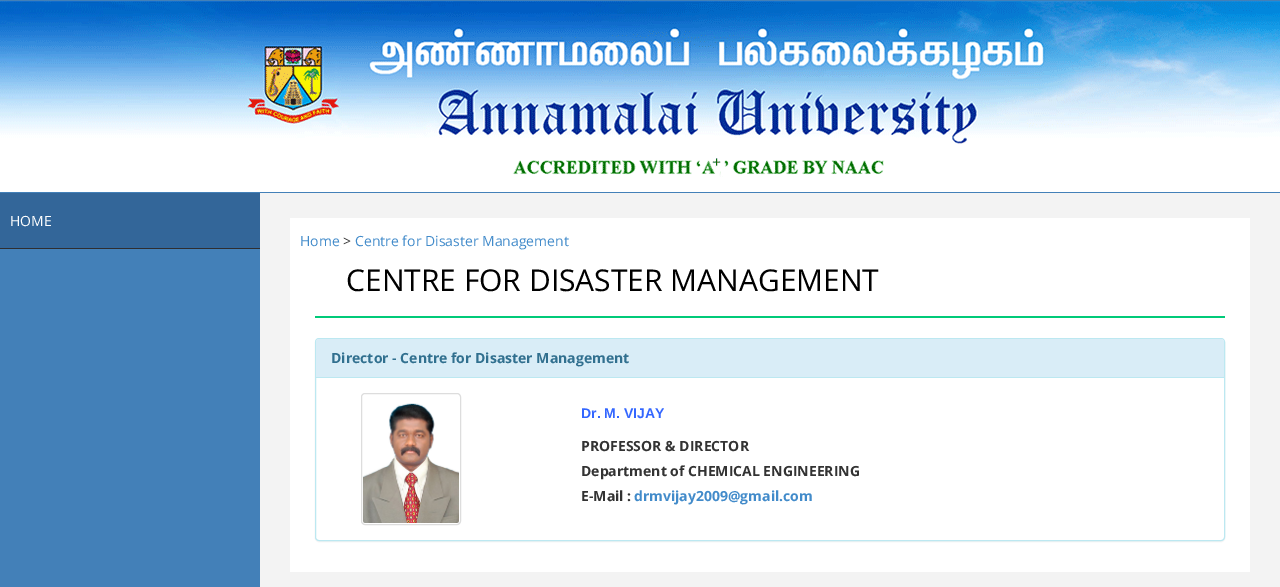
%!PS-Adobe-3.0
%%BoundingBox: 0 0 1280 587
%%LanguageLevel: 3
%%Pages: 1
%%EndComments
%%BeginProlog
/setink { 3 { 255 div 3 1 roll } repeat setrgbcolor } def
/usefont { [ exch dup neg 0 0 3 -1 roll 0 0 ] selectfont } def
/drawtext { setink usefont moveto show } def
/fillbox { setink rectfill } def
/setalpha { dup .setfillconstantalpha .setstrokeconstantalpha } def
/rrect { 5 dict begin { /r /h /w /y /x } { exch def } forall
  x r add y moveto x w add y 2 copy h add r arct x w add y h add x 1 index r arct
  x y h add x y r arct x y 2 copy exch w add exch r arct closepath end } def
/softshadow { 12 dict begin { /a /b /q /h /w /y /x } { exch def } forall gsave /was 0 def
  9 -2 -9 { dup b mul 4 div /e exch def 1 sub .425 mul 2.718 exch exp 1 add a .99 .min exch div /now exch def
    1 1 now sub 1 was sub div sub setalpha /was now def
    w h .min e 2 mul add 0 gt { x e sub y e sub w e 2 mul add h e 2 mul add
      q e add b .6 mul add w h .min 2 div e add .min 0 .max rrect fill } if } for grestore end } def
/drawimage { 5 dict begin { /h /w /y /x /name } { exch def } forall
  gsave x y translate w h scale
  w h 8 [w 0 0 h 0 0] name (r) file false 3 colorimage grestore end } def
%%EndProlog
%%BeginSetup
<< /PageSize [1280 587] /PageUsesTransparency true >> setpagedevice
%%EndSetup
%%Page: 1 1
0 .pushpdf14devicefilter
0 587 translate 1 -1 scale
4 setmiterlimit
0 0 1280 587 67 128 184 fillbox
0 177 1280 15 255 255 255 fillbox
(assets/img1.rgb) 0 1 1280 176 drawimage
0 193 260 55 51 102 153 fillbox
0 248 260 1 47 46 49 fillbox
(HOME) 10 226 /OpenSans-Regular 14 255 255 255 drawtext
260 193 1020 394 243 243 243 fillbox
290 218 960 354 255 255 255 fillbox
(Home) 300 246 /OpenSans-Regular 14 66 139 202 drawtext
(>) 343 246 /OpenSans-Regular 14 51 51 51 drawtext
(Centre for Disaster Management) 355 246 /OpenSans-Regular 14 66 139 202 drawtext
315 316 910 2 0 202 121 fillbox
(CENTRE FOR DISASTER MANAGEMENT) 346 291 /OpenSans-Regular 30 0 0 0 drawtext
315 339 910 203 4 0.5 0.05 softshadow
255 255 255 setink
315.5 338.5 909 202 3.5 rrect gsave fill grestore
188 232 241 setink
stroke
217 237 247 setink
319 339 moveto 1221 339 lineto 1222.5 339 1224 340.5 1224 342 curveto 1224 378 lineto 316 378 lineto 316 342 lineto 316 340.5 317.5 339 319 339 curveto closepath fill
316 377 908 1 188 232 241 fillbox
(Director - Centre for Disaster Management) 331 363 /OpenSans-Bold 14 49 112 143 drawtext
221 221 221 setink
361.5 393.5 99 131 3.5 rrect stroke
(assets/img2.rgb) 363 403 96 120 drawimage
(Dr. M. VIJAY) 581 418 /LiberationSans-Bold 14 51 102 255 drawtext
(PROFESSOR & DIRECTOR) 581 451 /OpenSans-Bold 14 51 51 51 drawtext
(Department of CHEMICAL ENGINEERING) 581 476 /OpenSans-Bold 14 51 51 51 drawtext
(E-Mail :) 581 501 /OpenSans-Bold 14 51 51 51 drawtext
(drmvijay2009@gmail.com) 634 501 /OpenSans-Bold 14 66 139 202 drawtext
.poppdf14devicefilter showpage
%%EOF
